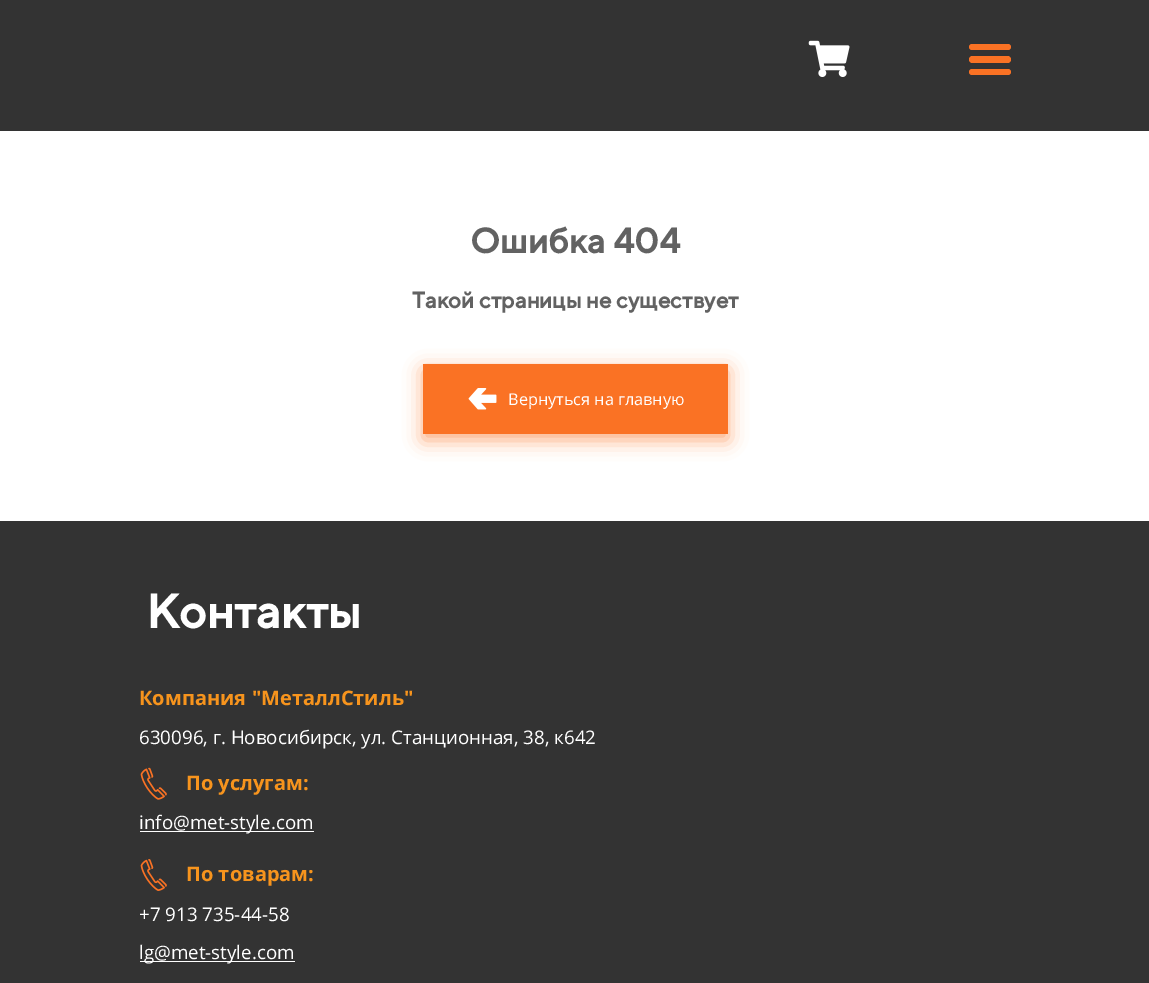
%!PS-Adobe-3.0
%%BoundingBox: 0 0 1149 983
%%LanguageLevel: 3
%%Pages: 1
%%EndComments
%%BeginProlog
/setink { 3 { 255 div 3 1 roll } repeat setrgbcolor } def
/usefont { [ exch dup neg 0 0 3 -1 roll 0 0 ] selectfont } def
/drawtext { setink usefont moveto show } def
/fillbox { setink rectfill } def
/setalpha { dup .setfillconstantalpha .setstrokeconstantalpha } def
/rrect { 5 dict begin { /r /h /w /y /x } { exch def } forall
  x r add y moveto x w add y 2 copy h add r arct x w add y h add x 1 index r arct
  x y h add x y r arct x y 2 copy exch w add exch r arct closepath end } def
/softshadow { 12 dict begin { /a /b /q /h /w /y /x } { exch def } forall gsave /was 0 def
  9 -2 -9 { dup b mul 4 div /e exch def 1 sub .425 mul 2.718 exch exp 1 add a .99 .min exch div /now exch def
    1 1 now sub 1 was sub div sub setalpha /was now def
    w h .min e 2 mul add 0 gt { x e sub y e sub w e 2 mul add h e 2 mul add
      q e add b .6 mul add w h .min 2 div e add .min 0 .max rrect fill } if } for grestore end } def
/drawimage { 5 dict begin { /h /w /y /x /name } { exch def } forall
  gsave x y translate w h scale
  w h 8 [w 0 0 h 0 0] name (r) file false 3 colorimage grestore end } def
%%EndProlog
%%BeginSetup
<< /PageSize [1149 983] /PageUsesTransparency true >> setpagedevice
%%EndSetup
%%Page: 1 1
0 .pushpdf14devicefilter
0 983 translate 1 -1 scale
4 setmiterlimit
0 0 1149 983 255 255 255 fillbox
0 0 1149 131 51 51 51 fillbox
(assets/img1.rgb) 808 40 42 37 drawimage
250 114 36 setink
969 44 42 6 3 rrect fill
969 56 42 7 3.5 rrect fill
969 69 42 6 3 rrect fill
(Ошибка 404) 470 253 /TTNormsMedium-Bold 35 98 98 98 drawtext
(Такой страницы не существует) 412 308 /TTNormsMedium-Bold 22.5 98 98 98 drawtext
249 96 8 setink
423 370 305 70 0 9.5 0.53 softshadow
gsave 423 364 moveto 728 364 lineto 728 434 lineto 423 434 lineto closepath clip newpath
<< /ShadingType 2 /ColorSpace /DeviceRGB /Coords [529 309 621 488] /Extend [true true] /Function << /FunctionType 2 /Domain [0 1] /C0 [0.98 0.447 0.141] /C1 [0.98 0.451 0.141] /N 1 >> >> shfill grestore
(assets/img2.rgb) 468 388 29 22 drawimage
(Вернуться на главную) 508 405 /OpenSans-Regular 16.25 255 255 255 drawtext
0 521 1149 462 51 51 51 fillbox
(Контакты) 146 628 /TTNormsMedium-Bold 47.5 255 255 255 drawtext
(Компания "МеталлСтиль") 139 705 /OpenSans-Bold 20 247 148 29 drawtext
(630096, г. Новосибирск, ул. Станционная, 38, к642) 139 744 /OpenSans-Regular 18.75 255 255 255 drawtext
(assets/img3.rgb) 140 767 27 33 drawimage
(По услугам:) 186 790 /OpenSans-Bold 20 247 148 29 drawtext
140 831 174 1 255 255 255 fillbox
(info@met-style.com) 139 829 /OpenSans-Regular 18.75 255 255 255 drawtext
(assets/img4.rgb) 140 859 27 32 drawimage
(По товарам:) 186 881 /OpenSans-Bold 20 247 148 29 drawtext
(+7 913 735-44-58) 139 921 /OpenSans-Regular 18.75 255 255 255 drawtext
140 961 155 1 255 255 255 fillbox
(lg@met-style.com) 139 959 /OpenSans-Regular 18.75 255 255 255 drawtext
.poppdf14devicefilter showpage
%%EOF
